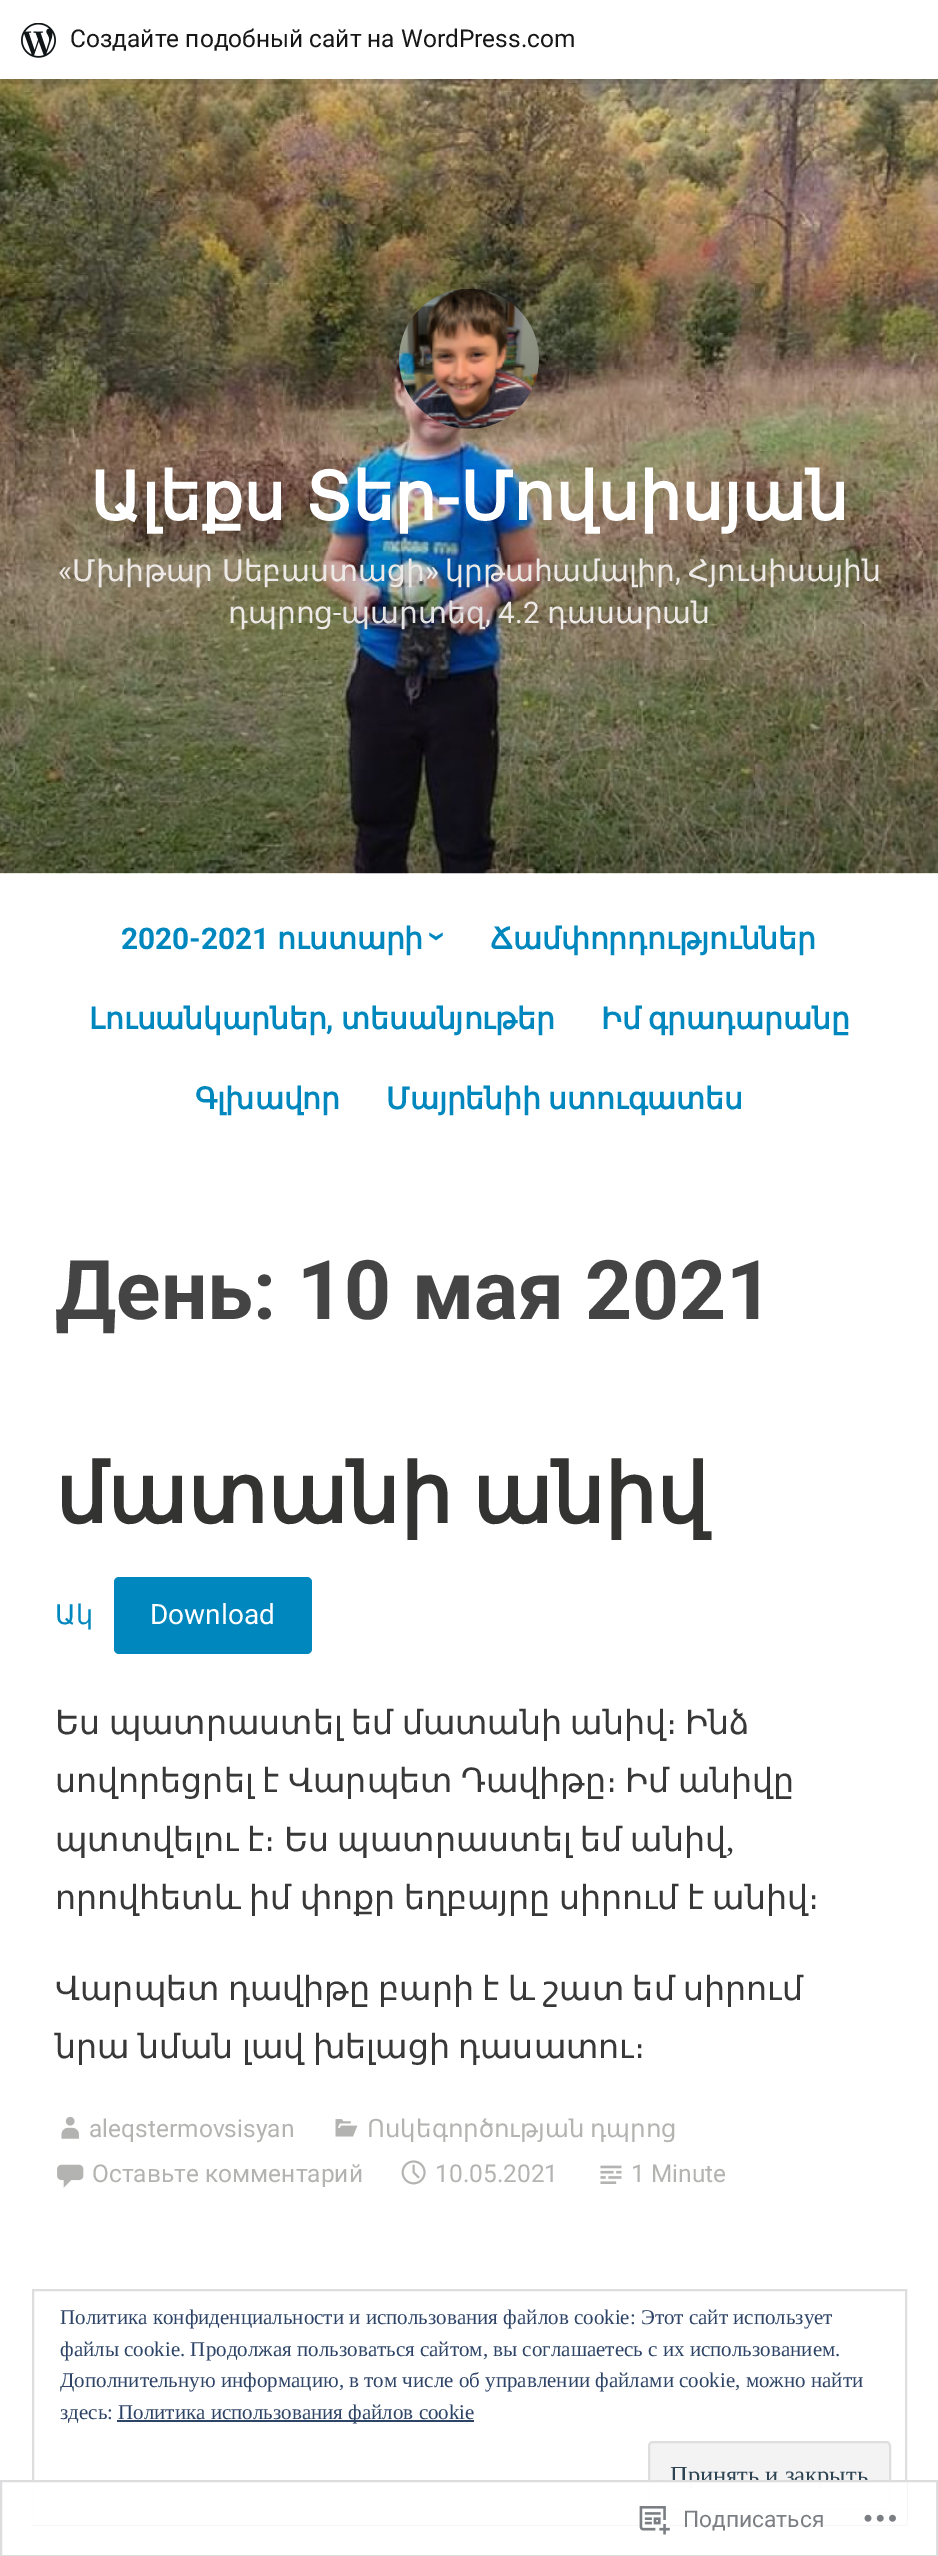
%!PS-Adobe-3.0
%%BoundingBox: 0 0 938 2556
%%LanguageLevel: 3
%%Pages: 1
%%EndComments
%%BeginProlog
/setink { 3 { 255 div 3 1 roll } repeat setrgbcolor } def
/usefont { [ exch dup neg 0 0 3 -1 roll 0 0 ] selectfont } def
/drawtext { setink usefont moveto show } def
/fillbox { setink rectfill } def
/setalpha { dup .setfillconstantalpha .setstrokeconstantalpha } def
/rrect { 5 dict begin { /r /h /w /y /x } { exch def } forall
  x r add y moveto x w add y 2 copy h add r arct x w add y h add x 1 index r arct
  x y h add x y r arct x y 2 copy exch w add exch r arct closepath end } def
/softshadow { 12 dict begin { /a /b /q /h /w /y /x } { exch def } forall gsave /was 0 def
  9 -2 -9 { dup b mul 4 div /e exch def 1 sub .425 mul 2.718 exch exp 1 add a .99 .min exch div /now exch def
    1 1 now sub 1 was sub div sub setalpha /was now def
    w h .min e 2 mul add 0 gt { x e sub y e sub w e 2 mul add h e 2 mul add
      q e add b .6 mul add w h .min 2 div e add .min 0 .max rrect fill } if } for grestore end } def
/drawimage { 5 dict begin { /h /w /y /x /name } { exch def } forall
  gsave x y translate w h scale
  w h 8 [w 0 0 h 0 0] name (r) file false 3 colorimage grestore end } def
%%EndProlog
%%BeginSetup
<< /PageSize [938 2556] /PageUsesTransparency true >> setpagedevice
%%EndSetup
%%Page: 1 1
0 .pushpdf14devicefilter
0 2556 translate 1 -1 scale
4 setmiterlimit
0 0 938 2556 255 255 255 fillbox
(assets/img2.rgb) 0 79 938 795 drawimage
0 0 0 setink
0 2 938 79 0 2 0.05 softshadow
0.08 setalpha
2 79 moveto 2 84 lineto 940 84 lineto 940 5 lineto 938 5 lineto 938 79 lineto closepath fill
1 setalpha
0 0 938 79 255 255 255 fillbox
(assets/img1.rgb) 21 23 35 35 drawimage
(Создайте подобный сайт на WordPress.com) 70 47 /Roboto-Regular 24.5 23 23 23 drawtext
(assets/img3.rgb) 399 288 140 141 drawimage
/DejaVuSans-Bold 66.5 usefont
255 255 255 setink
90 520 moveto -2 0 32 (Ալեքս Տեր-Մովսիսյան) widthshow
(«) 58 581 /Roboto-Regular 29.75 236 233 230 drawtext
/DejaVuSans-Regular 29.75 usefont
72 581 moveto -1 0 32 (Մխիթար Սեբաստացի) widthshow
(») 425 581 /Roboto-Regular 29.75 238 239 240 drawtext
(կրթահամալիր) 445 581 /DejaVuSans-Regular 29.75 236 233 230 drawtext
(Հյուսիսային) 688 581 /DejaVuSans-Regular 29.75 236 233 230 drawtext
(,) 675 581 /Roboto-Regular 29.75 236 233 230 drawtext
(դպրոց) 228 623 /DejaVuSans-Regular 29.75 236 233 230 drawtext
(-) 333 623 /Roboto-Regular 29.75 236 233 230 drawtext
(պարտեզ) 341 623 /DejaVuSans-Regular 29.75 229 228 228 drawtext
(, 4.2) 485 623 /Roboto-Regular 29.75 236 233 230 drawtext
(դասարան) 547 623 /DejaVuSans-Regular 29.75 236 233 230 drawtext
(2020-2021) 121 949 /Roboto-Bold 29.75 0 135 190 drawtext
(ուստարի) 277 949 /DejaVuSans-Bold 29.75 0 135 190 drawtext
/Roboto-Bold 35 usefont
gsave 427 931 translate 90 rotate 0 0 moveto (›) show grestore
(Ճամփորդություններ) 490 949 /DejaVuSans-Bold 29.75 0 135 190 drawtext
(Լուսանկարներ) 89 1029 /DejaVuSans-Bold 29.75 0 135 190 drawtext
(,) 326 1029 /Roboto-Bold 29.75 0 135 190 drawtext
(տեսանյութեր) 341 1029 /DejaVuSans-Bold 29.75 0 135 190 drawtext
601 1029 moveto -2 0 32 (Իմ գրադարանը) widthshow
(Գլխավոր) 195 1109 /DejaVuSans-Bold 29.75 0 135 190 drawtext
386 1109 moveto -2 0 32 (Մայրենիի ստուգատես) widthshow
(День: 10 мая 2021) 55 1319 /Roboto-Bold 82.25 68 68 68 drawtext
/DejaVuSans-Bold 82.25 usefont
51 51 50 setink
55 1523 moveto -6 0 32 (մատանի անիվ) widthshow
(Ակ) 55 1624 /DejaVuSans-Regular 27 0 135 190 drawtext
114 1577 198 77 5 rrect fill
(Download) 150 1624 /Roboto-Regular 28 255 255 255 drawtext
/DejaVuSans-Regular 33.25 usefont
56 56 56 setink
55 1734 moveto -2.25 0 32 (Ես պատրաստել եմ մատանի անիվ։ Ինձ) widthshow
55 1792 moveto -2.25 0 32 (սովորեցրել է) widthshow
288 1792 moveto -2.25 0 32 (Վարպետ Դավիթը։ Իմ անիվը) widthshow
55 1851 moveto -2.25 0 32 (պտտվելու է։ Ես պատրաստել եմ անիվ) widthshow
(,) 726 1851 /LiberationSerif-Regular 33.25 56 56 56 drawtext
/DejaVuSans-Regular 33.25 usefont
55 1909 moveto -2.25 0 32 (որովհետև իմ փոքր եղբայրը սիրում է անիվ։) widthshow
55 2000 moveto -2.25 0 32 (Վարպետ դավիթը բարի է և շատ եմ սիրում) widthshow
55 2058 moveto -2.25 0 32 (նրա նման լավ խելացի դասատու։) widthshow
(assets/img4.rgb) 61 2116 18 23 drawimage
(aleqstermovsisyan) 89 2137 /Roboto-Regular 24.5 179 179 177 drawtext
(assets/img5.rgb) 335 2119 23 18 drawimage
/DejaVuSans-Regular 24.5 usefont
367 2137 moveto -2 0 32 (Ոսկեգործության դպրոց) widthshow
(assets/img6.rgb) 57 2164 27 24 drawimage
(Оставьте комментарий) 92 2182 /Roboto-Regular 24.5 179 179 177 drawtext
(assets/img7.rgb) 401 2160 25 25 drawimage
(10.05.2021) 435 2182 /Roboto-Regular 24.5 179 179 177 drawtext
(assets/img8.rgb) 600 2165 22 19 drawimage
(1 Minute) 631 2182 /Roboto-Regular 24.5 179 179 177 drawtext
222 222 222 setink
2 setlinewidth
33 2290 873 234 rectstroke
(Политика конфиденциальности и использования файлов сookie: Этот сайт использует) 60 2324 /LiberationSerif-Regular 21 46 68 103 drawtext
(файлы cookie. Продолжая пользоваться сайтом, вы соглашаетесь с их использованием.) 60 2356 /LiberationSerif-Regular 21 46 68 103 drawtext
(Дополнительную информацию, в том числе об управлении файлами cookie, можно найти) 60 2387 /LiberationSerif-Regular 21 46 68 103 drawtext
(здесь:) 60 2419 /LiberationSerif-Regular 21 46 68 103 drawtext
117 2420 357 2 46 68 103 fillbox
(Политика использования файлов cookie) 118 2419 /LiberationSerif-Regular 21 46 68 103 drawtext
243 243 243 setink
649 2442 241 67 4 rrect gsave fill grestore
222 222 222 setink
stroke
(Принять и закрыть) 670 2483 /LiberationSerif-Regular 24.5 46 68 83 drawtext
0.98 setalpha
32 2480 875 45 255 255 255 fillbox
220 220 222 setink
1 2481 936 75 rectstroke
1 setalpha
(assets/img9.rgb) 639 2506 31 29 drawimage
(Подписаться) 683 2527 /Roboto-Regular 22.75 123 127 132 drawtext
(assets/img10.rgb) 864 2514 32 8 drawimage
.poppdf14devicefilter showpage
%%EOF
